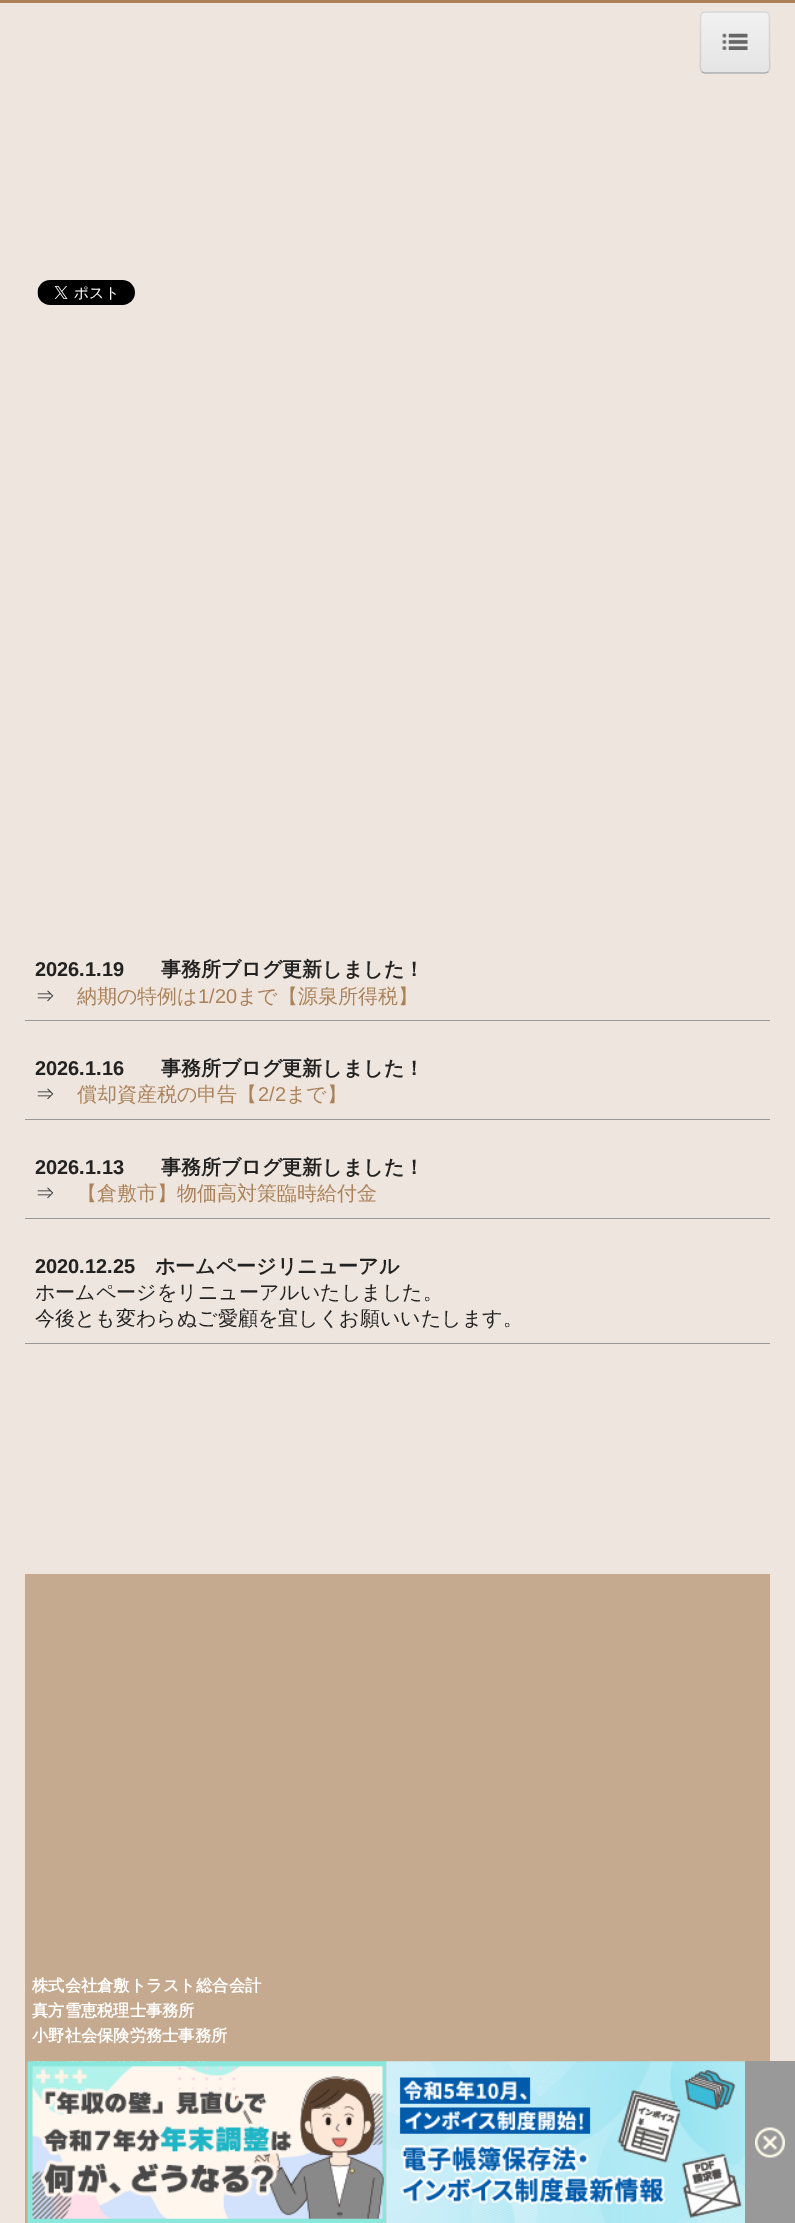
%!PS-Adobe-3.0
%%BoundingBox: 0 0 795 2223
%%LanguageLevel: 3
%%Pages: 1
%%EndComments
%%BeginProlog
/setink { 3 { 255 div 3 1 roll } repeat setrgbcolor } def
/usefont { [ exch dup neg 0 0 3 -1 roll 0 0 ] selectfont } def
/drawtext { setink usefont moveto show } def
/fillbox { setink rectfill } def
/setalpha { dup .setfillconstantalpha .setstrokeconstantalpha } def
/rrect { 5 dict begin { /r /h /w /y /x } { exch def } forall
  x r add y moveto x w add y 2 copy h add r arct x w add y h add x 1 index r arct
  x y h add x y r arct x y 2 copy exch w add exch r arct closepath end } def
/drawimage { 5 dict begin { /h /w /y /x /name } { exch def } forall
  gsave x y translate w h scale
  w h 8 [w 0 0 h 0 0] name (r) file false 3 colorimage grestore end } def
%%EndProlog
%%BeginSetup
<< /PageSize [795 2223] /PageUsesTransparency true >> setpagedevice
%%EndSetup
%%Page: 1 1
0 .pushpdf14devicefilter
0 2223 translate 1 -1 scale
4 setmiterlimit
0 0 795 2223 238 230 222 fillbox
0 0 795 3 171 129 89 fillbox
237 237 237 setink
700 11 70 63 5 rrect fill
gsave
700 11 70 63 5 rrect clip newpath
gsave 700 13 moveto 770 13 lineto 770 73 lineto 700 73 lineto closepath clip newpath
<< /ShadingType 2 /ColorSpace /DeviceRGB /Coords [735 12 735 73] /Extend [true true] /Function << /FunctionType 2 /Domain [0 1] /C0 [0.949 0.949 0.949] /C1 [0.898 0.898 0.898] /N 1 >> >> shfill grestore
grestore
0.25 setalpha
0 0 0 setink
1.2 setlinewidth
768 72 moveto 765.5 73 lineto 704.5 73 lineto 702 72 lineto stroke
0.1 setalpha
702 72 moveto 699 69 700.5 62 700.5 60 curveto 700.5 25 lineto 700.5 10 700 12 715 12 curveto 755 12 lineto 770 12 769.5 10 769.5 25 curveto 769.5 60 lineto 769.5 62 771 69 768 72 curveto stroke
1 setalpha
(assets/img1.rgb) 722 33 26 17 drawimage
(assets/img2.rgb) 37 280 98 25 drawimage
25 1020 745 1 153 153 153 fillbox
(2026.1.19) 35 976 /LiberationSans-Bold 20 34 34 34 drawtext
(事務所ブログ更新しました！) 161 976 /WenQuanYiZenHei-Bold 20 34 34 34 drawtext
(⇒) 35 1003 /WenQuanYiZenHei-Medium 20 34 34 34 drawtext
(納期の特例は) 77 1003 /WenQuanYiZenHei-Medium 20 171 129 89 drawtext
(1/20) 198 1003 /LiberationSans-Regular 20 171 129 89 drawtext
(まで【源泉所得税】) 237 1003 /WenQuanYiZenHei-Medium 20 171 129 89 drawtext
25 1119 745 1 153 153 153 fillbox
(2026.1.16) 35 1075 /LiberationSans-Bold 20 34 34 34 drawtext
(事務所ブログ更新しました！) 161 1075 /WenQuanYiZenHei-Bold 20 34 34 34 drawtext
(⇒) 35 1101 /WenQuanYiZenHei-Medium 20 34 34 34 drawtext
(償却資産税の申告【) 77 1101 /WenQuanYiZenHei-Medium 20 171 129 89 drawtext
(2/2) 258 1101 /LiberationSans-Regular 20 171 129 89 drawtext
(まで】) 286 1101 /WenQuanYiZenHei-Medium 20 171 129 89 drawtext
25 1218 745 1 153 153 153 fillbox
(2026.1.13) 35 1174 /LiberationSans-Bold 20 34 34 34 drawtext
(事務所ブログ更新しました！) 161 1174 /WenQuanYiZenHei-Bold 20 34 34 34 drawtext
(⇒) 35 1200 /WenQuanYiZenHei-Medium 20 34 34 34 drawtext
(【倉敷市】物価高対策臨時給付金) 77 1200 /WenQuanYiZenHei-Medium 20 171 129 89 drawtext
25 1343 745 1 153 153 153 fillbox
(2020.12.25) 35 1273 /LiberationSans-Bold 20 34 34 34 drawtext
(ホームページリニューアル) 155 1273 /WenQuanYiZenHei-Bold 20 34 34 34 drawtext
(ホームページをリニューアルいたしました。) 35 1299 /WenQuanYiZenHei-Medium 20 34 34 34 drawtext
(今後とも変わらぬご愛顧を宜しくお願いいたします。) 35 1325 /WenQuanYiZenHei-Medium 20 34 34 34 drawtext
25 1574 745 649 198 170 143 fillbox
(株式会社倉敷トラスト総合会計) 32 1991 /WenQuanYiZenHei-Bold 16.25 255 255 255 drawtext
(真方雪恵税理士事務所) 32 2016 /WenQuanYiZenHei-Bold 16.25 255 255 255 drawtext
(小野社会保険労務士事務所) 32 2041 /WenQuanYiZenHei-Bold 16.25 255 255 255 drawtext
(assets/img3.rgb) 27 2061 360 162 drawimage
(assets/img4.rgb) 386 2061 359 162 drawimage
745 2061 50 162 153 153 153 fillbox
(assets/img5.rgb) 755 2127 30 31 drawimage
.poppdf14devicefilter showpage
%%EOF
